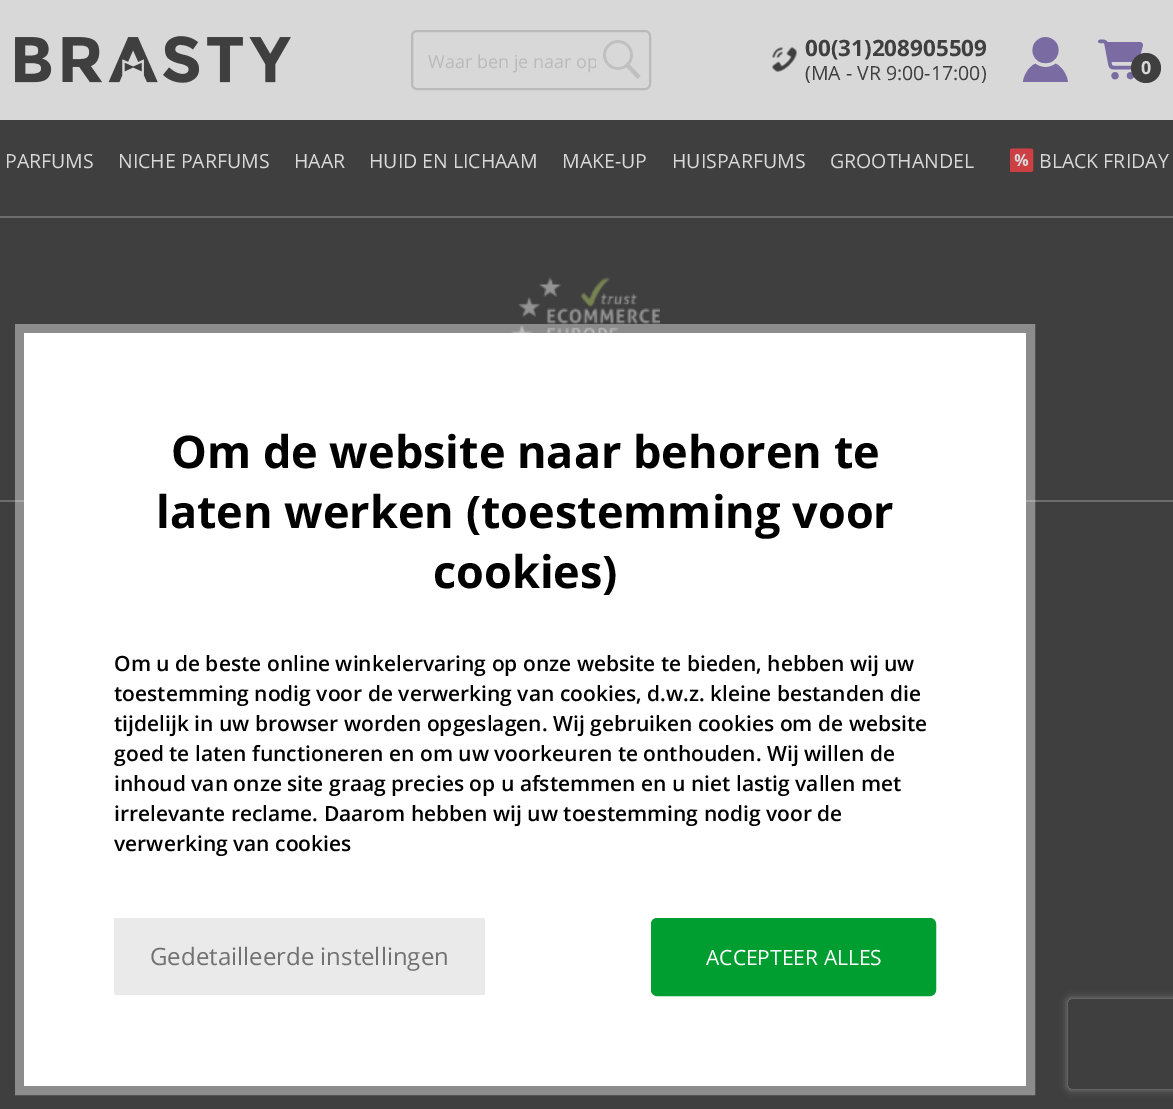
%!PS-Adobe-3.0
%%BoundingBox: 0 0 1173 1109
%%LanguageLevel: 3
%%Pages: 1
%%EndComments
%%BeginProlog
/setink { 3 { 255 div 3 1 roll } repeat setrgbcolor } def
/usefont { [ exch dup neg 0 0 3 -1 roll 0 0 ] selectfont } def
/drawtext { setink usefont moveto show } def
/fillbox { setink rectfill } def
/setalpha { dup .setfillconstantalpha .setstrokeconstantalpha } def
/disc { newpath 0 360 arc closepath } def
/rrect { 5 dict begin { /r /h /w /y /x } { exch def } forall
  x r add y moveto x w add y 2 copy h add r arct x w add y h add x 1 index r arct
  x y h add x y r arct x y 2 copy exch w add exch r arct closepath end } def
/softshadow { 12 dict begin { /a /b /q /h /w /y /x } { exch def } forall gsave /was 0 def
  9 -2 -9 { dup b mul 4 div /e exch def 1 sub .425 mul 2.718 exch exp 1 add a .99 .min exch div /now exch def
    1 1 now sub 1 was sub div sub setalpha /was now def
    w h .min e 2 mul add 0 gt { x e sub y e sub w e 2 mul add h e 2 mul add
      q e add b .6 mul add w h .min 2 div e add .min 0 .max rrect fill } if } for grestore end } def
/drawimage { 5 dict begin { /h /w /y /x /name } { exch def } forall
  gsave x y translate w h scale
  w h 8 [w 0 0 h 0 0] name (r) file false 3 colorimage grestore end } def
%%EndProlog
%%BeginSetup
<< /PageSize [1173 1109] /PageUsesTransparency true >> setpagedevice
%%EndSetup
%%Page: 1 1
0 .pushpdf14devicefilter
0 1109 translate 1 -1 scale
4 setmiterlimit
0 0 1173 1109 63 63 63 fillbox
0 0 1173 120 216 216 216 fillbox
(assets/img1.rgb) 15 36 276 47 drawimage
186 186 186 setink
2 setlinewidth
412 31 238 58 5 rrect stroke
gsave
428 51 168 23 rectclip
(Waar ben je naar op) 428 68 /OpenSans-Regular 18 186 186 186 drawtext
grestore
(assets/img2.rgb) 603 40 38 39 drawimage
(assets/img3.rgb) 772 47 25 25 drawimage
(00\(31\)208905509) 805 56 /OpenSans-Bold 22.5 63 63 63 drawtext
(\(MA - VR 9:00-17:00\)) 805 80 /OpenSans-Regular 19.5 63 63 63 drawtext
(assets/img4.rgb) 1023 37 45 45 drawimage
(assets/img5.rgb) 1098 39 45 41 drawimage
1146 68 15 disc fill
(0) 1141 74 /OpenSans-Bold 18 216 216 216 drawtext
(PARFUMS) 5 168 /OpenSans-Regular 19.5 216 216 216 drawtext
(NICHE PARFUMS) 118 168 /OpenSans-Regular 19.5 216 216 216 drawtext
(HAAR) 294 168 /OpenSans-Regular 19.5 216 216 216 drawtext
(HUID EN LICHAAM) 369 168 /OpenSans-Regular 19.5 216 216 216 drawtext
(MAKE-UP) 562 168 /OpenSans-Regular 19.5 216 216 216 drawtext
(HUISPARFUMS) 672 168 /OpenSans-Regular 19.5 216 216 216 drawtext
(GROOTHANDEL) 830 168 /OpenSans-Regular 19.5 216 216 216 drawtext
(assets/img6.rgb) 1010 148 24 24 drawimage
(BLACK FRIDAY) 1039 168 /OpenSans-Regular 19.5 216 216 216 drawtext
0 216 1173 2 109 109 109 fillbox
0 500 1173 2 109 109 109 fillbox
(assets/img7.rgb) 511 277 149 56 drawimage
0.4 setalpha
255 255 255 setink
9 setlinewidth
19.5 328.5 1011 762 rectstroke
1 setalpha
24 333 1002 753 255 255 255 fillbox
(Om de website naar behoren te) 171 468 /OpenSans-Bold 45 0 0 0 drawtext
(laten werken \(toestemming voor) 156 528 /OpenSans-Bold 45 0 0 0 drawtext
(cookies\)) 433 588 /OpenSans-Bold 45 0 0 0 drawtext
(Om u de beste online winkelervaring op onze website te bieden, hebben wij uw) 114 671 /OpenSans-SemiBold 21 0 0 0 drawtext
(toestemming nodig voor de verwerking van cookies, d.w.z. kleine bestanden die) 114 701 /OpenSans-SemiBold 21 0 0 0 drawtext
(tijdelijk in uw browser worden opgeslagen. Wij gebruiken cookies om de website) 114 731 /OpenSans-SemiBold 21 0 0 0 drawtext
(goed te laten functioneren en om uw voorkeuren te onthouden. Wij willen de) 114 761 /OpenSans-SemiBold 21 0 0 0 drawtext
(inhoud van onze site graag precies op u afstemmen en u niet lastig vallen met) 114 791 /OpenSans-SemiBold 21 0 0 0 drawtext
(irrelevante reclame. Daarom hebben wij uw toestemming nodig voor de) 114 821 /OpenSans-SemiBold 21 0 0 0 drawtext
(verwerking van cookies) 114 851 /OpenSans-SemiBold 21 0 0 0 drawtext
114 918 371 77 234 234 234 fillbox
(Gedetailleerde instellingen) 150 965 /OpenSans-Regular 24 114 114 114 drawtext
0 158 49 setink
652 919 283 76 5 rrect gsave fill grestore
2 setlinewidth
stroke
(ACCEPTEER ALLES) 706 965 /OpenSans-Regular 21 255 255 255 drawtext
gsave
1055 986 moveto 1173 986 lineto 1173 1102 lineto 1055 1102 lineto closepath 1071 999 moveto 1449 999 lineto 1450.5 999 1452 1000.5 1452 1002 curveto 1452 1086 lineto 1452 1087.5 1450.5 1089 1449 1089 curveto 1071 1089 lineto 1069.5 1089 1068 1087.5 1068 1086 curveto 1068 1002 lineto 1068 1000.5 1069.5 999 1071 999 curveto closepath eoclip newpath
140 140 140 setink
1068 999 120 90 3 4 1 softshadow
grestore
.poppdf14devicefilter showpage
%%EOF
